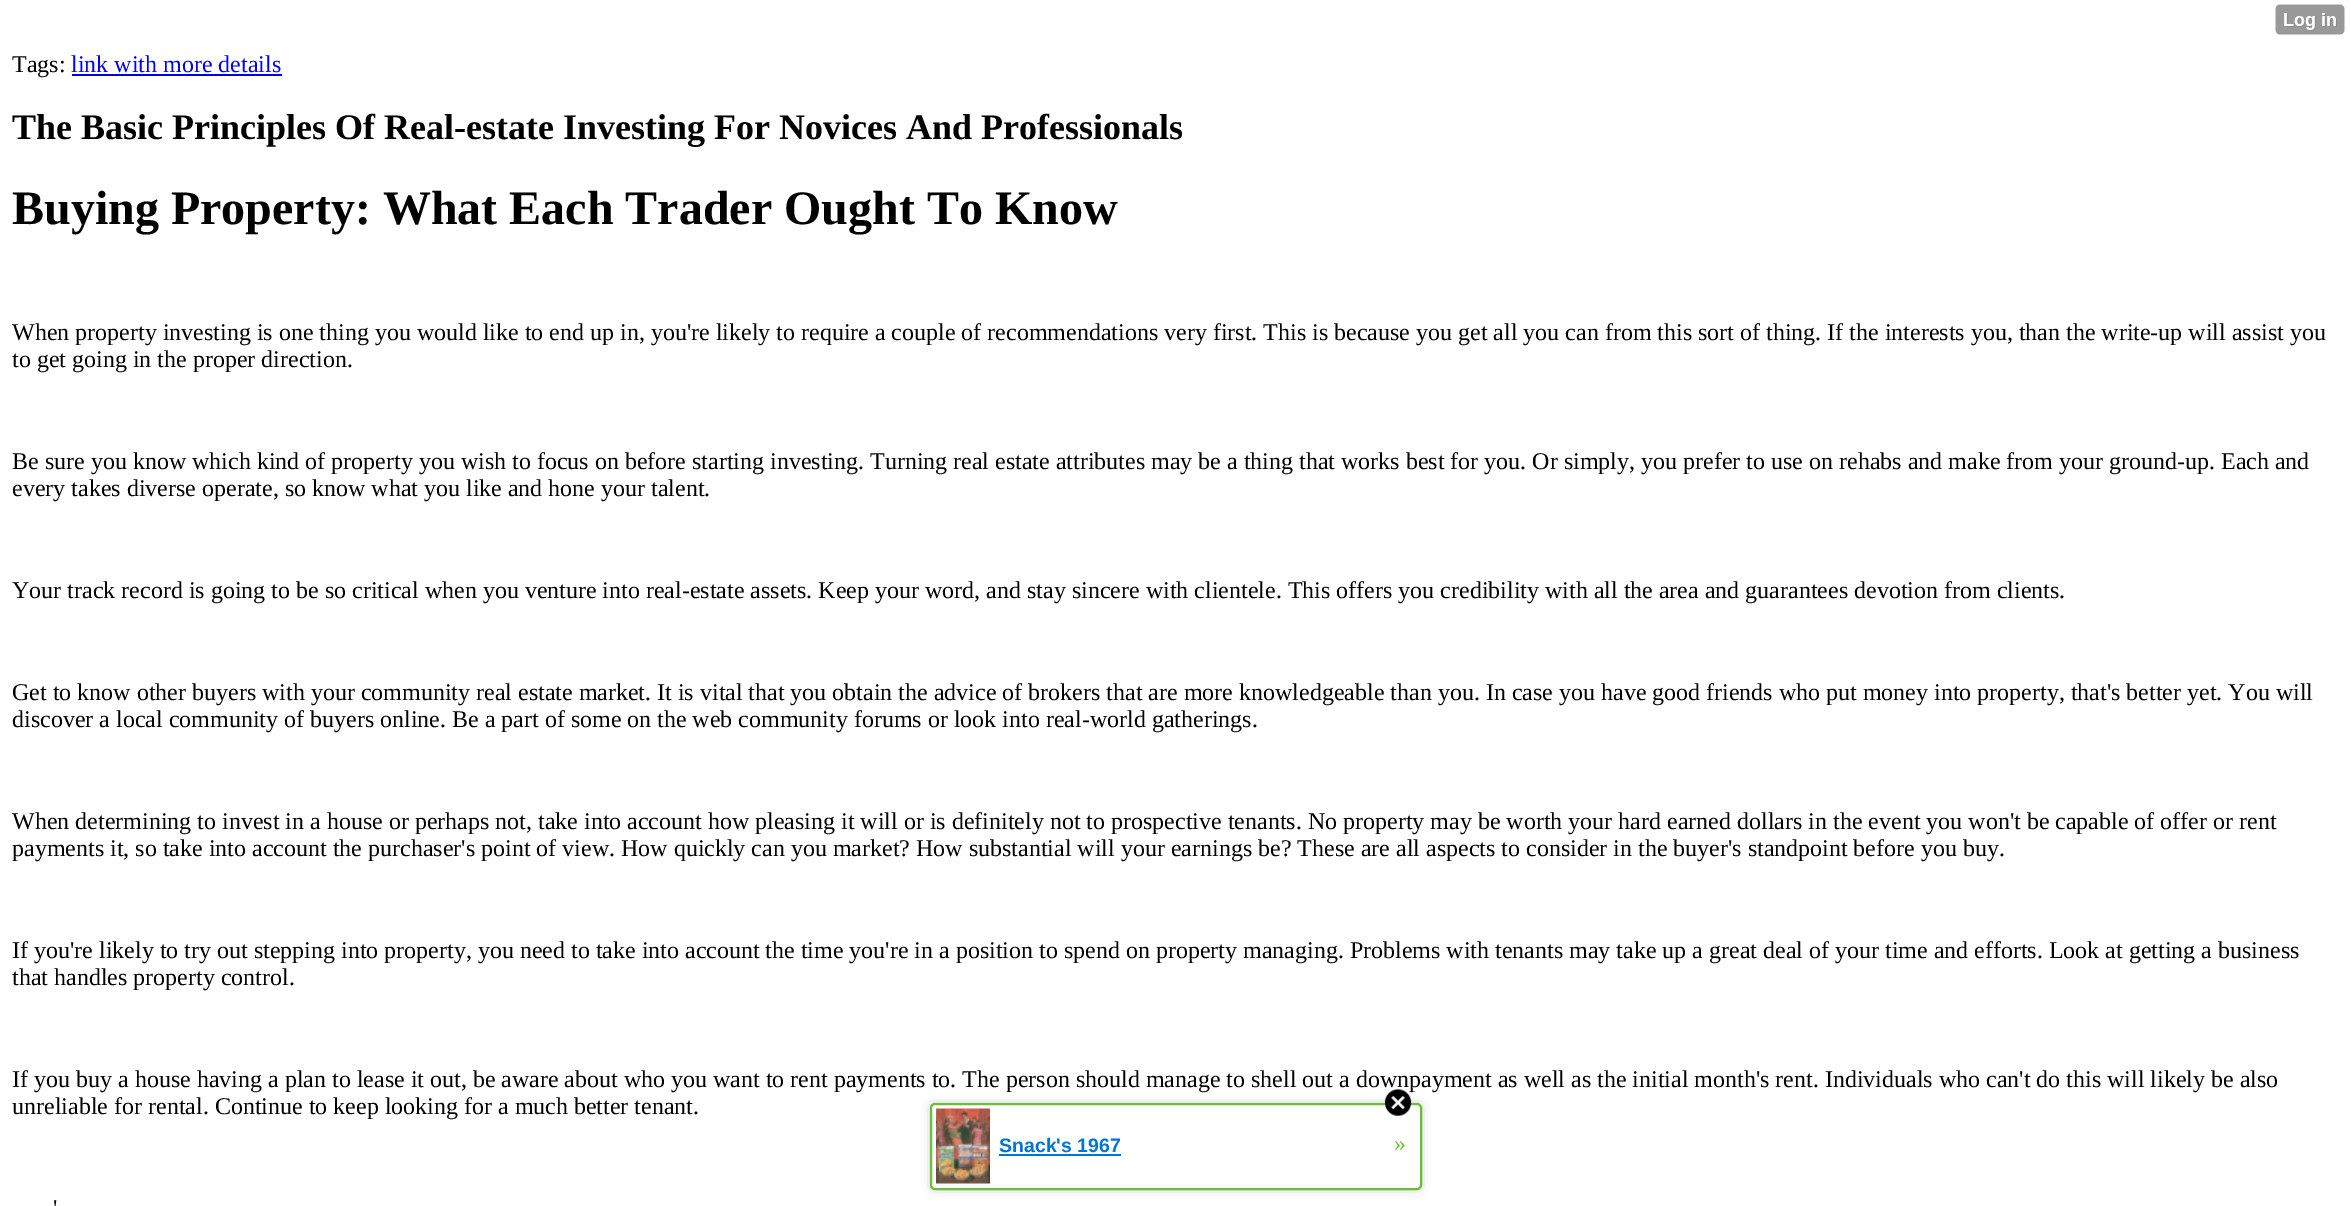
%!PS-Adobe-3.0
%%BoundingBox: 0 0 2351 1206
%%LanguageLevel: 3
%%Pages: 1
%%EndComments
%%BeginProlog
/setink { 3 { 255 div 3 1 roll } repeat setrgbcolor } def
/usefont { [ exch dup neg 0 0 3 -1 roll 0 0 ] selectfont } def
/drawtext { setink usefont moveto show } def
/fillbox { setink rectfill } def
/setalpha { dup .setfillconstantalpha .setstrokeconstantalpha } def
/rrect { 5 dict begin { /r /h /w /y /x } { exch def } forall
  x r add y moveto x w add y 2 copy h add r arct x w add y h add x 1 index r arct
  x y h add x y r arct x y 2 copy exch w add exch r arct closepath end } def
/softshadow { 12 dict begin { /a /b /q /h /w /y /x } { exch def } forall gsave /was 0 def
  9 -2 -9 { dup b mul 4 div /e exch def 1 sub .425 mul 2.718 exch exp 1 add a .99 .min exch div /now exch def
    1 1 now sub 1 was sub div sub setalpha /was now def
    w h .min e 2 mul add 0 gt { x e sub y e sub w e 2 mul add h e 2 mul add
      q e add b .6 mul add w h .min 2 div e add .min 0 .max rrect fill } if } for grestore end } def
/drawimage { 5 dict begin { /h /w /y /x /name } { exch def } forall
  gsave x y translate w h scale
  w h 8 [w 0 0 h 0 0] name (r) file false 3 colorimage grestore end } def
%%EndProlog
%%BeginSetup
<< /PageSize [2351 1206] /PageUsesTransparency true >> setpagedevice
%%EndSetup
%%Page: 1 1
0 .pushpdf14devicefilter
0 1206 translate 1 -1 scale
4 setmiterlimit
0 0 2351 1206 255 255 255 fillbox
(assets/img1.rgb) 2275 4 70 31 drawimage
(Tags:) 12 72 /LiberationSerif-Regular 24 0 0 0 drawtext
(link with more details) 71 72 /LiberationSerif-Regular 24 0 0 238 drawtext
72 74 210 2 0 0 238 fillbox
(The Basic Principles Of Real-estate Investing For Novices And Professionals) 12 139 /LiberationSerif-Bold 36 0 0 0 drawtext
(Buying Property: What Each Trader Ought To Know) 12 224 /LiberationSerif-Bold 48 0 0 0 drawtext
(When property investing is one thing you would like to end up in, you're likely to require a couple of recommendations very first. This is because you get all you can from this sort of thing. If the interests you, than the write-up will assist you) 12 340 /LiberationSerif-Regular 24 0 0 0 drawtext
(to get going in the proper direction.) 12 367 /LiberationSerif-Regular 24 0 0 0 drawtext
(Be sure you know which kind of property you wish to focus on before starting investing. Turning real estate attributes may be a thing that works best for you. Or simply, you prefer to use on rehabs and make from your ground-up. Each and) 12 469 /LiberationSerif-Regular 24 0 0 0 drawtext
(every takes diverse operate, so know what you like and hone your talent.) 12 496 /LiberationSerif-Regular 24 0 0 0 drawtext
(Your track record is going to be so critical when you venture into real-estate assets. Keep your word, and stay sincere with clientele. This offers you credibility with all the area and guarantees devotion from clients.) 12 598 /LiberationSerif-Regular 24 0 0 0 drawtext
(Get to know other buyers with your community real estate market. It is vital that you obtain the advice of brokers that are more knowledgeable than you. In case you have good friends who put money into property, that's better yet. You will) 12 700 /LiberationSerif-Regular 24 0 0 0 drawtext
(discover a local community of buyers online. Be a part of some on the web community forums or look into real-world gatherings.) 12 727 /LiberationSerif-Regular 24 0 0 0 drawtext
(When determining to invest in a house or perhaps not, take into account how pleasing it will or is definitely not to prospective tenants. No property may be worth your hard earned dollars in the event you won't be capable of offer or rent) 12 829 /LiberationSerif-Regular 24 0 0 0 drawtext
(payments it, so take into account the purchaser's point of view. How quickly can you market? How substantial will your earnings be? These are all aspects to consider in the buyer's standpoint before you buy.) 12 856 /LiberationSerif-Regular 24 0 0 0 drawtext
(If you're likely to try out stepping into property, you need to take into account the time you're in a position to spend on property managing. Problems with tenants may take up a great deal of your time and efforts. Look at getting a business) 12 958 /LiberationSerif-Regular 24 0 0 0 drawtext
(that handles property control.) 12 985 /LiberationSerif-Regular 24 0 0 0 drawtext
(If you buy a house having a plan to lease it out, be aware about who you want to rent payments to. The person should manage to shell out a downpayment as well as the initial month's rent. Individuals who can't do this will likely be also) 12 1087 /LiberationSerif-Regular 24 0 0 0 drawtext
(unreliable for rental. Continue to keep looking for a much better tenant.) 12 1114 /LiberationSerif-Regular 24 0 0 0 drawtext
(') 53 1216 /LiberationSerif-Regular 24 0 0 0 drawtext
930 1103 492 87 5 4 0.2 softshadow
255 255 255 setink
931 1104 490 85 4 rrect gsave fill grestore
107 193 53 setink
2 setlinewidth
stroke
(assets/img2.rgb) 1384 1089 28 27 drawimage
(assets/img3.rgb) 936 1108 54 76 drawimage
(Snack's 1967) 999 1152 /LiberationSans-Bold 19.5 2 116 212 drawtext
999 1154 122 2 2 116 212 fillbox
(») 1394 1151 /LiberationSerif-Regular 24 107 193 53 drawtext
.poppdf14devicefilter showpage
%%EOF
